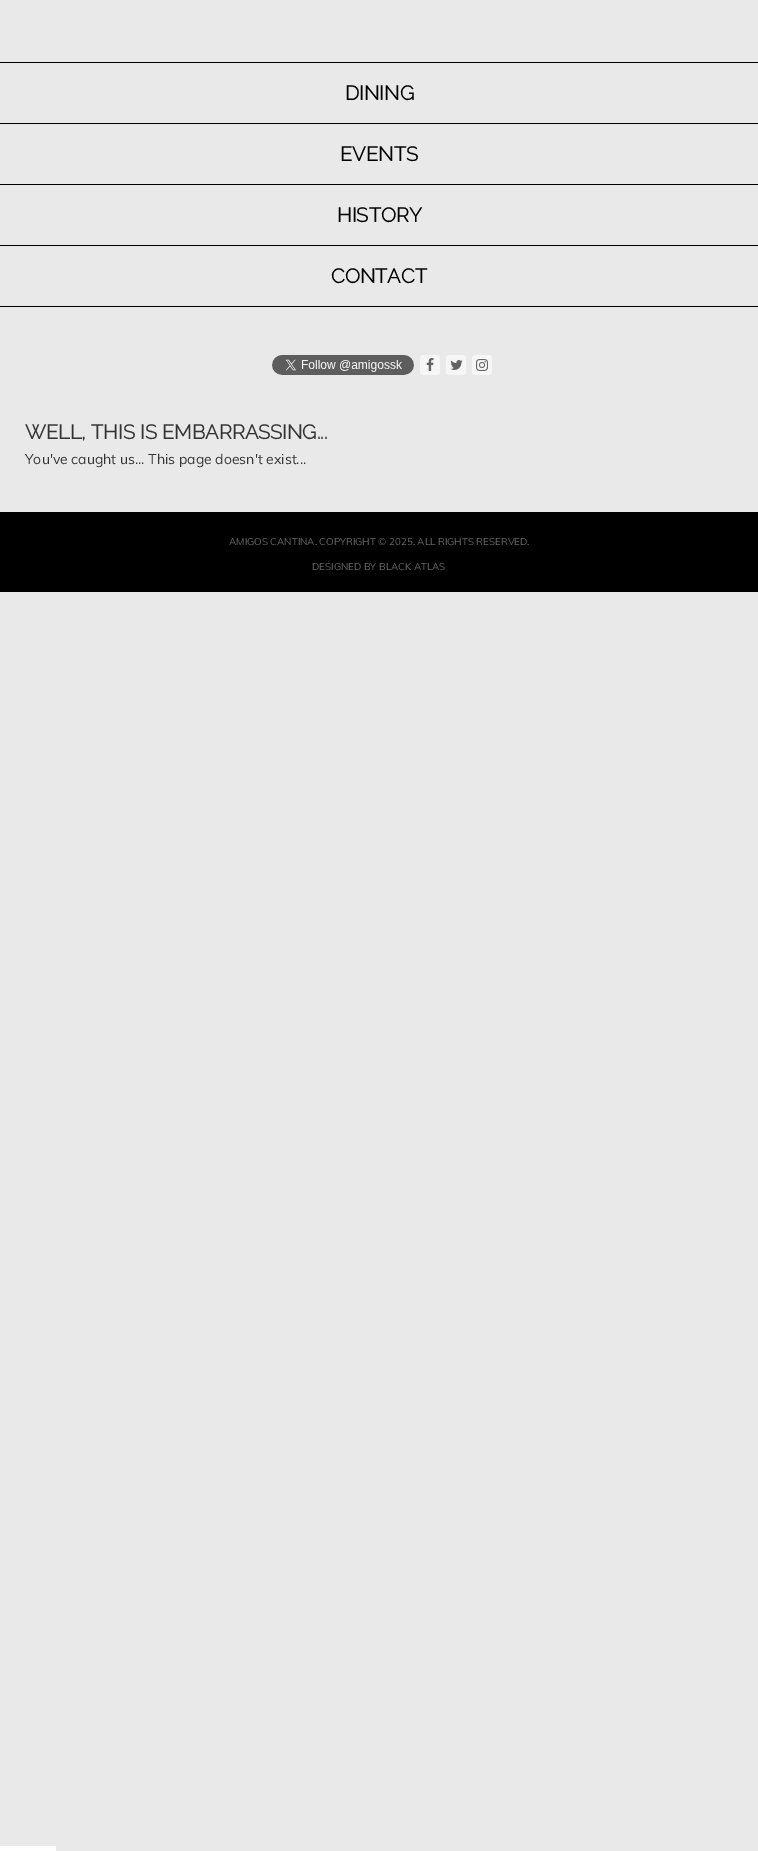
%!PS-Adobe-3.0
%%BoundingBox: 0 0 758 1851
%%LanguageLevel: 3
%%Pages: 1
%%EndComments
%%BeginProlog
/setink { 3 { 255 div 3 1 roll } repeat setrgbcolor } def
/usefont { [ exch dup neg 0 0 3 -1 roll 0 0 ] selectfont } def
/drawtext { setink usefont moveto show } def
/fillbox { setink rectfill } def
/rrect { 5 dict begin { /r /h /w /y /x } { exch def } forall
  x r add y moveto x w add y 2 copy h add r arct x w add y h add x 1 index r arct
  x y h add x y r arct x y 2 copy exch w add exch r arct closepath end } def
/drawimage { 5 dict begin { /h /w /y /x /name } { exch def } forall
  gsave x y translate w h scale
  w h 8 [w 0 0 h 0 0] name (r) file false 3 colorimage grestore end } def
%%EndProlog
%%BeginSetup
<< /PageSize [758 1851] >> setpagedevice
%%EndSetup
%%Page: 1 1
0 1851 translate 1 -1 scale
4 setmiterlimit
0 0 758 1851 233 233 233 fillbox
0 62 758 1 0 0 0 fillbox
0 123 758 1 0 0 0 fillbox
(DINING) 345 100 /Raleway-Bold 20 0 0 0 drawtext
0 184 758 1 0 0 0 fillbox
(EVENTS) 340 161 /Raleway-Bold 20 0 0 0 drawtext
0 245 758 1 0 0 0 fillbox
(HISTORY) 337 222 /Raleway-Bold 20 0 0 0 drawtext
0 306 758 1 0 0 0 fillbox
(CONTACT) 331 283 /Raleway-Bold 20 0 0 0 drawtext
(assets/img1.rgb) 272 355 142 20 drawimage
246 246 246 setink
420 355 20 20 3 rrect fill
(assets/img2.rgb) 426 358 8 13 drawimage
446 355 20 20 3 rrect fill
(assets/img3.rgb) 450 360 13 10 drawimage
472 355 20 20 3 rrect fill
(assets/img4.rgb) 476 359 12 12 drawimage
(WELL, THIS IS EMBARRASSING...) 25 439 /Raleway-Bold 20 51 51 51 drawtext
(You've caught us... This page doesn't exist...) 25 464 /Muli-Regular 14 51 51 51 drawtext
0 1846 56 5 255 255 255 fillbox
0 512 758 80 0 0 0 fillbox
(AMIGOS CANTINA. COPYRIGHT © 2025. ALL RIGHTS RESERVED.) 229 545 /Muli-Regular 9.8 102 102 102 drawtext
(DESIGNED BY BLACK ATLAS) 312 570 /Muli-Regular 9.8 102 102 102 drawtext
showpage
%%EOF
